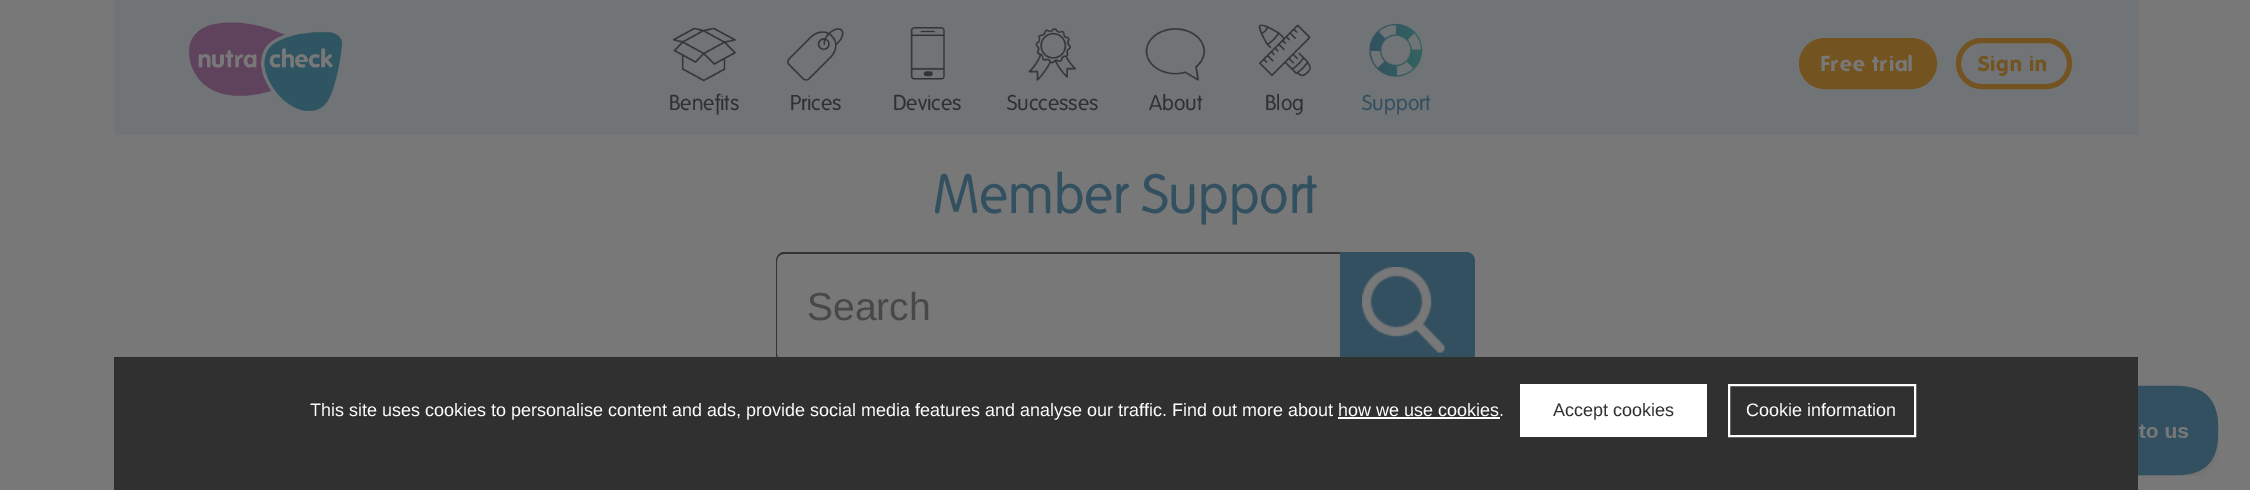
%!PS-Adobe-3.0
%%BoundingBox: 0 0 2250 490
%%LanguageLevel: 3
%%Pages: 1
%%EndComments
%%BeginProlog
/setink { 3 { 255 div 3 1 roll } repeat setrgbcolor } def
/usefont { [ exch dup neg 0 0 3 -1 roll 0 0 ] selectfont } def
/drawtext { setink usefont moveto show } def
/fillbox { setink rectfill } def
/rrect { 5 dict begin { /r /h /w /y /x } { exch def } forall
  x r add y moveto x w add y 2 copy h add r arct x w add y h add x 1 index r arct
  x y h add x y r arct x y 2 copy exch w add exch r arct closepath end } def
/drawimage { 5 dict begin { /h /w /y /x /name } { exch def } forall
  gsave x y translate w h scale
  w h 8 [w 0 0 h 0 0] name (r) file false 3 colorimage grestore end } def
%%EndProlog
%%BeginSetup
<< /PageSize [2250 490] >> setpagedevice
%%EndSetup
%%Page: 1 1
0 490 translate 1 -1 scale
4 setmiterlimit
0 0 2250 490 120 120 120 fillbox
114 0 2024 135 113 116 118 fillbox
(assets/img1.rgb) 189 22 153 89 drawimage
115 83 32 setink
1801.5 40.5 133 46 23 rrect gsave fill grestore
5 setlinewidth
stroke
/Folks-Bold 21 usefont
120 120 120 setink
1821 71 moveto 0.75 0 (Free trial) ashow
115 83 32 setink
1958.5 40.5 111 46 23 rrect stroke
1978 71 moveto 0.75 0 (Sign in) ashow
(assets/img2.rgb) 672 27 64 55 drawimage
(Benefits) 669 110 /Folks-Regular 21 48 48 48 drawtext
(assets/img3.rgb) 786 27 58 54 drawimage
(Prices) 790 110 /Folks-Regular 21 48 48 48 drawtext
(assets/img4.rgb) 910 27 35 53 drawimage
(Devices) 893 110 /Folks-Regular 21 48 48 48 drawtext
(assets/img5.rgb) 1028 27 49 54 drawimage
(Successes) 1007 110 /Folks-Regular 21 48 48 48 drawtext
(assets/img6.rgb) 1145 27 61 54 drawimage
(About) 1149 110 /Folks-Regular 21 48 48 48 drawtext
(assets/img7.rgb) 1258 24 53 53 drawimage
(Blog) 1265 110 /Folks-Regular 21 48 48 48 drawtext
(assets/img8.rgb) 1369 23 54 55 drawimage
(Support) 1362 110 /Folks-Regular 21 50 80 96 drawtext
(Member Support) 933 213 /Folks-Regular 54 50 80 96 drawtext
51 51 51 setink
784 252 moveto 1340 252 lineto 1340 363 lineto 784 363 lineto 780 363 776 359 776 354 curveto 776 261 lineto 776 256 780 252 784 252 curveto closepath 784 254 moveto 1340 254 lineto 1340 362 lineto 784 362 lineto 780 362 777 358 777 354 curveto 777 261 lineto 777 257 780 254 784 254 curveto closepath eofill
(Search) 807 320 /LiberationSans-Regular 39 72 72 72 drawtext
50 80 96 setink
1340 252 moveto 1466 252 lineto 1471 252 1475 256 1475 261 curveto 1475 354 lineto 1475 359 1471 363 1466 363 curveto 1340 363 lineto closepath fill
(assets/img9.rgb) 1362 267 83 86 drawimage
114 357 2024 133 48 48 48 fillbox
(This site uses cookies to personalise content and ads, provide social media features and analyse our traffic. Find out more about how we use cookies.) 310 416 /LiberationSans-Regular 18 255 255 255 drawtext
1338 417 162 2 255 255 255 fillbox
1520 384 187 53 255 255 255 fillbox
(Accept cookies) 1553 416 /LiberationSans-Regular 18 48 48 48 drawtext
255 255 255 setink
2 setlinewidth
1729 385 186 51 rectstroke
(Cookie information) 1746 416 /LiberationSans-Regular 18 255 255 255 drawtext
(assets/img10.rgb) 2138 385 81 91 drawimage
showpage
%%EOF
